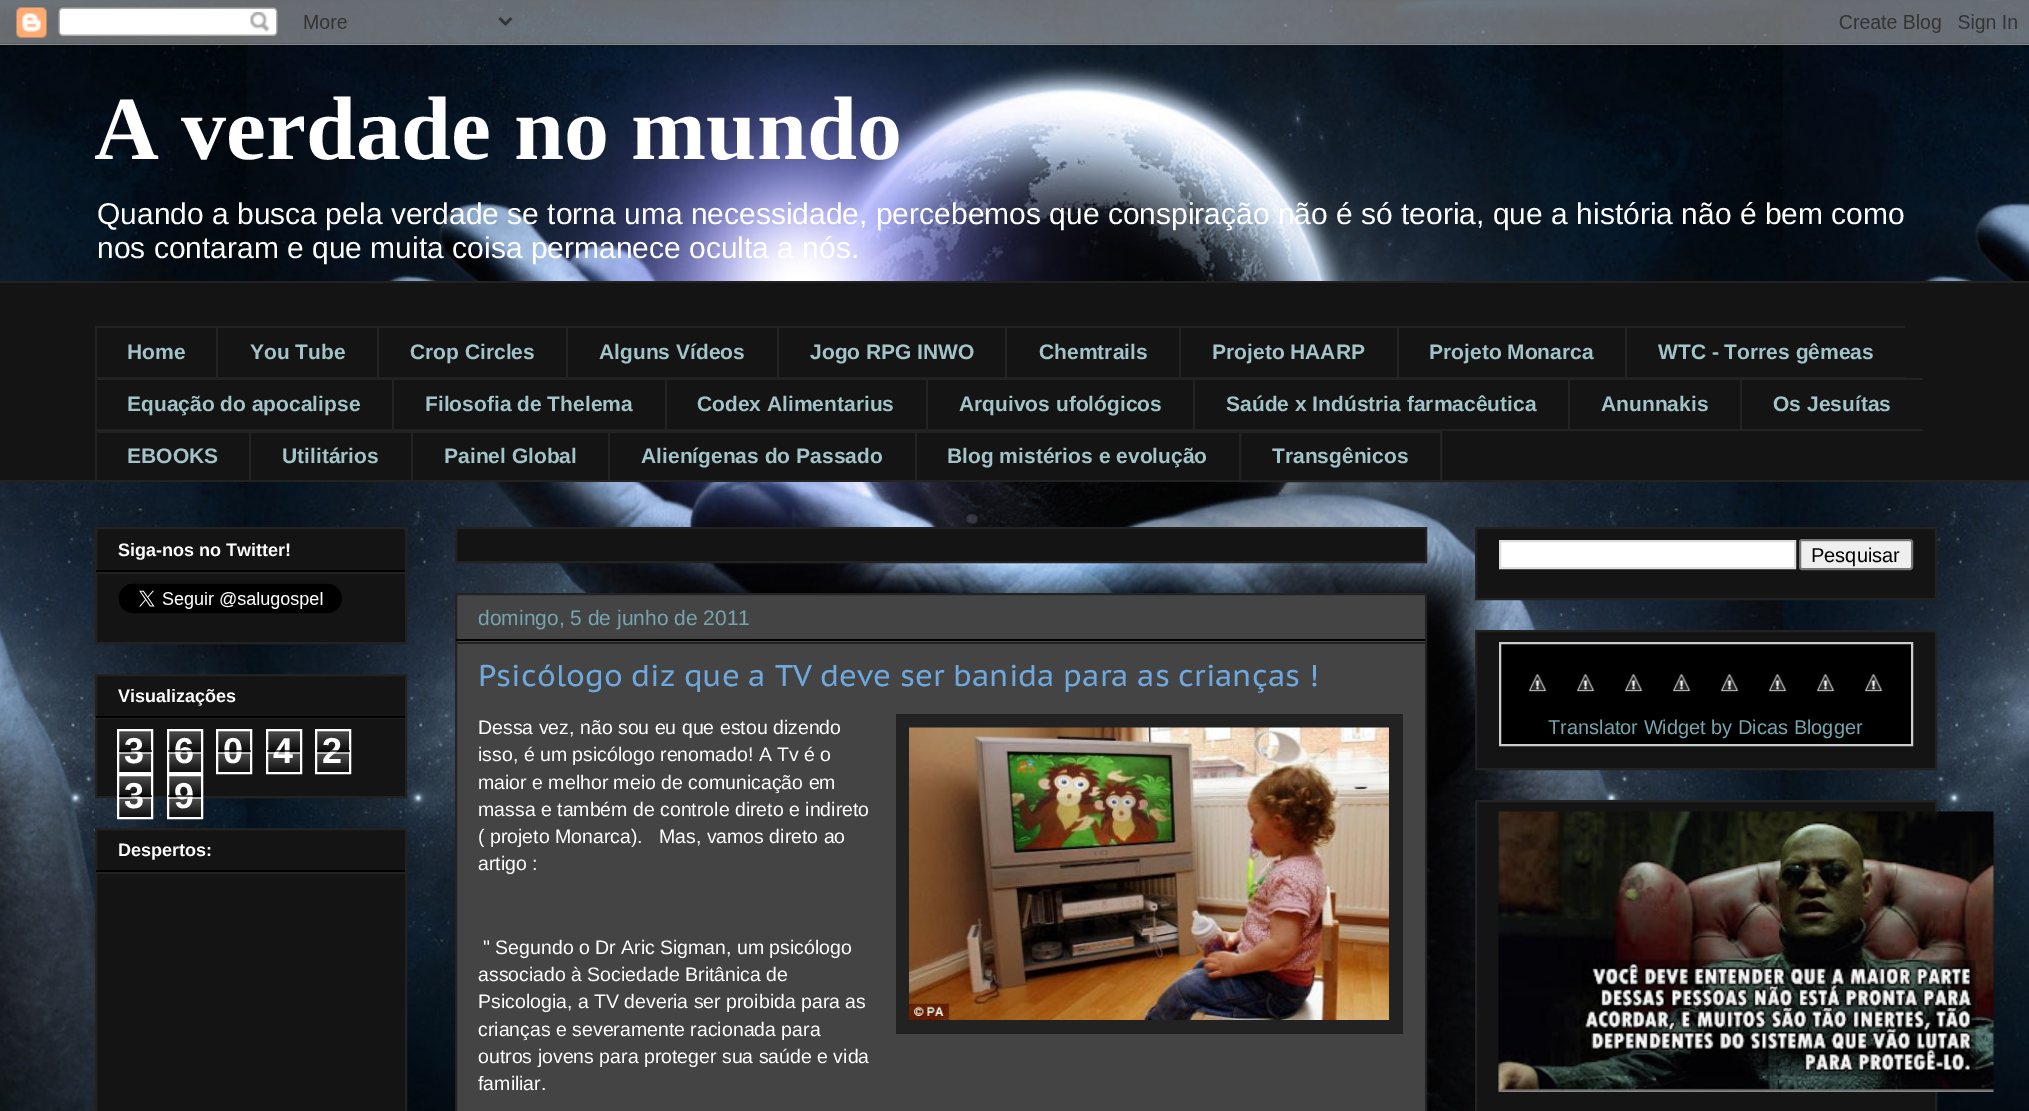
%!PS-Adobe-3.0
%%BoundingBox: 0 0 2029 1111
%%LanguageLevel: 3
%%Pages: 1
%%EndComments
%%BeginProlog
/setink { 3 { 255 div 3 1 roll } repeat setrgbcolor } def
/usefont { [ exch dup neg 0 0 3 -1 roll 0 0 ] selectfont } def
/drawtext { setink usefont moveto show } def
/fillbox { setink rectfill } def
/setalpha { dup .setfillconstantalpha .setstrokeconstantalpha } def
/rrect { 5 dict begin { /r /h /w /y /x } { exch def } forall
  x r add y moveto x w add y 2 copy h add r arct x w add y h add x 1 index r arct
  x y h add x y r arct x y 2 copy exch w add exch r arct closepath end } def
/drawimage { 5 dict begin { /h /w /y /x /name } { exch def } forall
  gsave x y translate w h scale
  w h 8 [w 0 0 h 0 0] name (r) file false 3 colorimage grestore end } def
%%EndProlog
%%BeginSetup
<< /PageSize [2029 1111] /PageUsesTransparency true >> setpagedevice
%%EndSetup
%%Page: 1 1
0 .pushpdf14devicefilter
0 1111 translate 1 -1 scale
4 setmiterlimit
0 0 2029 1111 255 255 255 fillbox
(assets/img1.rgb) 0 0 2029 1111 drawimage
(assets/img2.rgb) 0 0 2029 45 drawimage
gsave
95 45 1842 236 rectclip
(A verdade no mundo) 94 159 /LiberationSerif-Bold 90 255 255 255 drawtext
grestore
(Quando a busca pela verdade se torna uma necessidade, percebemos que conspiração não é só teoria, que a história não é bem como) 97 224 /LiberationSans-Regular 30 255 255 255 drawtext
(nos contaram e que muita coisa permanece oculta a nós.) 97 258 /LiberationSans-Regular 30 255 255 255 drawtext
0 283 2029 197 20 20 20 fillbox
0 281 2029 2 34 34 34 fillbox
95 326 1810 2 34 34 34 fillbox
95 377 1810 1 34 34 34 fillbox
95 326 2 52 34 34 34 fillbox
(Home) 127 359 /LiberationSans-Bold 21 162 196 201 drawtext
216 326 2 52 34 34 34 fillbox
(You Tube) 250 359 /LiberationSans-Bold 21 162 196 201 drawtext
377 326 2 52 34 34 34 fillbox
(Crop Circles) 410 359 /LiberationSans-Bold 21 162 196 201 drawtext
566 326 2 52 34 34 34 fillbox
(Alguns Vídeos) 599 359 /LiberationSans-Bold 21 162 196 201 drawtext
777 326 2 52 34 34 34 fillbox
(Jogo RPG INWO) 810 359 /LiberationSans-Bold 21 162 196 201 drawtext
1005 326 2 52 34 34 34 fillbox
(Chemtrails) 1039 359 /LiberationSans-Bold 21 162 196 201 drawtext
1179 326 2 52 34 34 34 fillbox
(Projeto HAARP) 1212 359 /LiberationSans-Bold 21 162 196 201 drawtext
1397 326 2 52 34 34 34 fillbox
(Projeto Monarca) 1429 359 /LiberationSans-Bold 21 162 196 201 drawtext
1625 326 2 52 34 34 34 fillbox
(WTC - Torres gêmeas) 1658 359 /LiberationSans-Bold 21 162 196 201 drawtext
95 378 1828 2 34 34 34 fillbox
95 429 1828 2 34 34 34 fillbox
95 378 2 53 34 34 34 fillbox
(Equação do apocalipse) 127 411 /LiberationSans-Bold 21 162 196 201 drawtext
392 378 2 53 34 34 34 fillbox
(Filosofia de Thelema) 425 411 /LiberationSans-Bold 21 162 196 201 drawtext
665 378 2 53 34 34 34 fillbox
(Codex Alimentarius) 697 411 /LiberationSans-Bold 21 162 196 201 drawtext
926 378 2 53 34 34 34 fillbox
(Arquivos ufológicos) 959 411 /LiberationSans-Bold 21 162 196 201 drawtext
1193 378 2 53 34 34 34 fillbox
(Saúde x Indústria farmacêutica) 1226 411 /LiberationSans-Bold 21 162 196 201 drawtext
1568 378 2 53 34 34 34 fillbox
(Anunnakis) 1601 411 /LiberationSans-Bold 21 162 196 201 drawtext
1740 378 2 53 34 34 34 fillbox
(Os Jesuítas) 1773 411 /LiberationSans-Bold 21 162 196 201 drawtext
95 431 1144 2 34 34 34 fillbox
95 431 2 51 34 34 34 fillbox
(EBOOKS) 127 463 /LiberationSans-Bold 21 162 196 201 drawtext
249 431 2 51 34 34 34 fillbox
(Utilitários) 282 463 /LiberationSans-Bold 21 162 196 201 drawtext
411 431 2 51 34 34 34 fillbox
(Painel Global) 444 463 /LiberationSans-Bold 21 162 196 201 drawtext
608 431 2 51 34 34 34 fillbox
(Alienígenas do Passado) 641 463 /LiberationSans-Bold 21 162 196 201 drawtext
915 431 2 51 34 34 34 fillbox
(Blog mistérios e evolução) 947 463 /LiberationSans-Bold 21 162 196 201 drawtext
34 34 34 setink
2 setlinewidth
1240 432 201 49 rectstroke
(Transgênicos) 1272 463 /LiberationSans-Bold 21 162 196 201 drawtext
0 480 2029 2 34 34 34 fillbox
20 20 20 setink
96 528 moveto 406 528 lineto 406 643 lineto 96 643 lineto closepath gsave fill grestore
34 34 34 setink
stroke
96 570 309 2 0 0 0 fillbox
(Siga-nos no Twitter!) 118 556 /LiberationSans-Bold 18 255 255 255 drawtext
96 572 309 2 34 34 34 fillbox
(assets/img3.rgb) 118 583 224 31 drawimage
20 20 20 setink
96 675 moveto 406 675 lineto 406 797 lineto 96 797 lineto closepath gsave fill grestore
34 34 34 setink
stroke
96 716 309 2 0 0 0 fillbox
(Visualizações) 118 702 /LiberationSans-Bold 18 255 255 255 drawtext
96 718 309 1 34 34 34 fillbox
(assets/img4.rgb) 119 731 32 41 drawimage
255 255 255 setink
118 730 34 43 rectstroke
(3) 124 763 /LiberationSans-Bold 36 255 255 255 drawtext
0.65 setalpha
119 750 33 2 0 0 0 fillbox
119 752 33 2 255 255 255 fillbox
1 setalpha
(assets/img5.rgb) 169 731 32 41 drawimage
168 730 34 43 rectstroke
(6) 174 763 /LiberationSans-Bold 36 255 255 255 drawtext
0.65 setalpha
168 750 33 2 0 0 0 fillbox
168 752 33 2 255 255 255 fillbox
1 setalpha
(assets/img4.rgb) 218 731 32 41 drawimage
217 730 34 43 rectstroke
(0) 223 763 /LiberationSans-Bold 36 255 255 255 drawtext
0.65 setalpha
218 750 33 2 0 0 0 fillbox
218 752 33 2 255 255 255 fillbox
1 setalpha
(assets/img5.rgb) 268 731 32 41 drawimage
267 730 34 43 rectstroke
(4) 273 763 /LiberationSans-Bold 36 255 255 255 drawtext
0.65 setalpha
267 750 33 2 0 0 0 fillbox
267 752 33 2 255 255 255 fillbox
1 setalpha
(assets/img4.rgb) 317 731 32 41 drawimage
316 730 34 43 rectstroke
(2) 322 763 /LiberationSans-Bold 36 255 255 255 drawtext
0.65 setalpha
317 750 33 2 0 0 0 fillbox
317 752 33 2 255 255 255 fillbox
1 setalpha
(assets/img4.rgb) 119 776 32 41 drawimage
118 775 34 43 rectstroke
(3) 124 808 /LiberationSans-Bold 36 255 255 255 drawtext
0.65 setalpha
119 795 33 2 0 0 0 fillbox
119 797 33 2 255 255 255 fillbox
1 setalpha
(assets/img5.rgb) 169 776 32 41 drawimage
168 775 34 43 rectstroke
(9) 174 808 /LiberationSans-Bold 36 255 255 255 drawtext
0.65 setalpha
168 795 33 2 0 0 0 fillbox
168 797 33 2 255 255 255 fillbox
1 setalpha
20 20 20 setink
96 829 moveto 406 829 lineto 406 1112 lineto 96 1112 lineto closepath gsave fill grestore
34 34 34 setink
stroke
96 870 309 2 0 0 0 fillbox
(Despertos:) 118 856 /LiberationSans-Bold 18 255 255 255 drawtext
96 872 309 2 34 34 34 fillbox
20 20 20 setink
456 528 moveto 1426 528 lineto 1426 562 lineto 456 562 lineto closepath gsave fill grestore
34 34 34 setink
stroke
68 68 68 setink
456 594 moveto 1426 594 lineto 1426 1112 lineto 456 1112 lineto closepath gsave fill grestore
34 34 34 setink
stroke
456 639 969 2 0 0 0 fillbox
(domingo, 5 de junho de 2011) 478 625 /LiberationSans-Regular 21 118 165 175 drawtext
456 642 969 2 34 34 34 fillbox
(Psicólogo diz que a TV deve ser banida para as crianças !) 478 686 /PTSansCaption-Regular 30 111 168 220 drawtext
(Dessa vez, não sou eu que estou dizendo) 478 734 /LiberationSans-Regular 19.5 255 255 255 drawtext
896 714 507 320 34 34 34 fillbox
(assets/img6.rgb) 909 727 480 293 drawimage
(isso, é um psicólogo renomado! A Tv é o) 478 761 /LiberationSans-Regular 19.5 255 255 255 drawtext
(maior e melhor meio de comunicação em) 478 789 /LiberationSans-Regular 19.5 255 255 255 drawtext
(massa e também de controle direto e indireto) 478 816 /LiberationSans-Regular 19.5 255 255 255 drawtext
(\( projeto Monarca\).   Mas, vamos direto ao) 478 843 /LiberationSans-Regular 19.5 255 255 255 drawtext
(artigo :) 478 870 /LiberationSans-Regular 19.5 255 255 255 drawtext
(" Segundo o Dr Aric Sigman, um psicólogo) 483 954 /LiberationSans-Regular 19.5 255 255 255 drawtext
(associado à Sociedade Britânica de) 478 981 /LiberationSans-Regular 19.5 255 255 255 drawtext
(Psicologia, a TV deveria ser proibida para as) 478 1008 /LiberationSans-Regular 19.5 255 255 255 drawtext
(crianças e severamente racionada para) 478 1036 /LiberationSans-Regular 19.5 255 255 255 drawtext
(outros jovens para proteger sua saúde e vida) 478 1063 /LiberationSans-Regular 19.5 255 255 255 drawtext
(familiar.) 478 1090 /LiberationSans-Regular 19.5 255 255 255 drawtext
20 20 20 setink
1476 528 moveto 1936 528 lineto 1936 599 lineto 1476 599 lineto closepath gsave fill grestore
34 34 34 setink
stroke
255 255 255 setink
1500 541 moveto 1795 541 lineto 1795 568 lineto 1500 568 lineto closepath gsave fill grestore
221 221 221 setink
stroke
239 239 239 setink
1800 540 112 29 2 rrect gsave fill grestore
118 118 118 setink
stroke
(Pesquisar) 1811 562 /LiberationSans-Regular 20 0 0 0 drawtext
20 20 20 setink
1476 631 moveto 1936 631 lineto 1936 769 lineto 1476 769 lineto closepath gsave fill grestore
34 34 34 setink
stroke
0 0 0 setink
1500 643 moveto 1912 643 lineto 1912 745 lineto 1500 745 lineto closepath gsave fill grestore
204 204 204 setink
stroke
(assets/img7.rgb) 1528 673 19 19 drawimage
(assets/img8.rgb) 1576 673 19 19 drawimage
(assets/img8.rgb) 1624 673 19 19 drawimage
(assets/img9.rgb) 1672 673 19 19 drawimage
(assets/img7.rgb) 1720 673 19 19 drawimage
(assets/img7.rgb) 1768 673 19 19 drawimage
(assets/img7.rgb) 1816 673 19 19 drawimage
(assets/img8.rgb) 1864 673 19 19 drawimage
(Translator Widget by Dicas Blogger) 1548 734 /LiberationSans-Regular 20 118 165 175 drawtext
20 20 20 setink
1476 801 moveto 1936 801 lineto 1936 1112 lineto 1476 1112 lineto closepath gsave fill grestore
34 34 34 setink
stroke
(assets/img10.rgb) 1498 811 496 281 drawimage
.poppdf14devicefilter showpage
%%EOF
